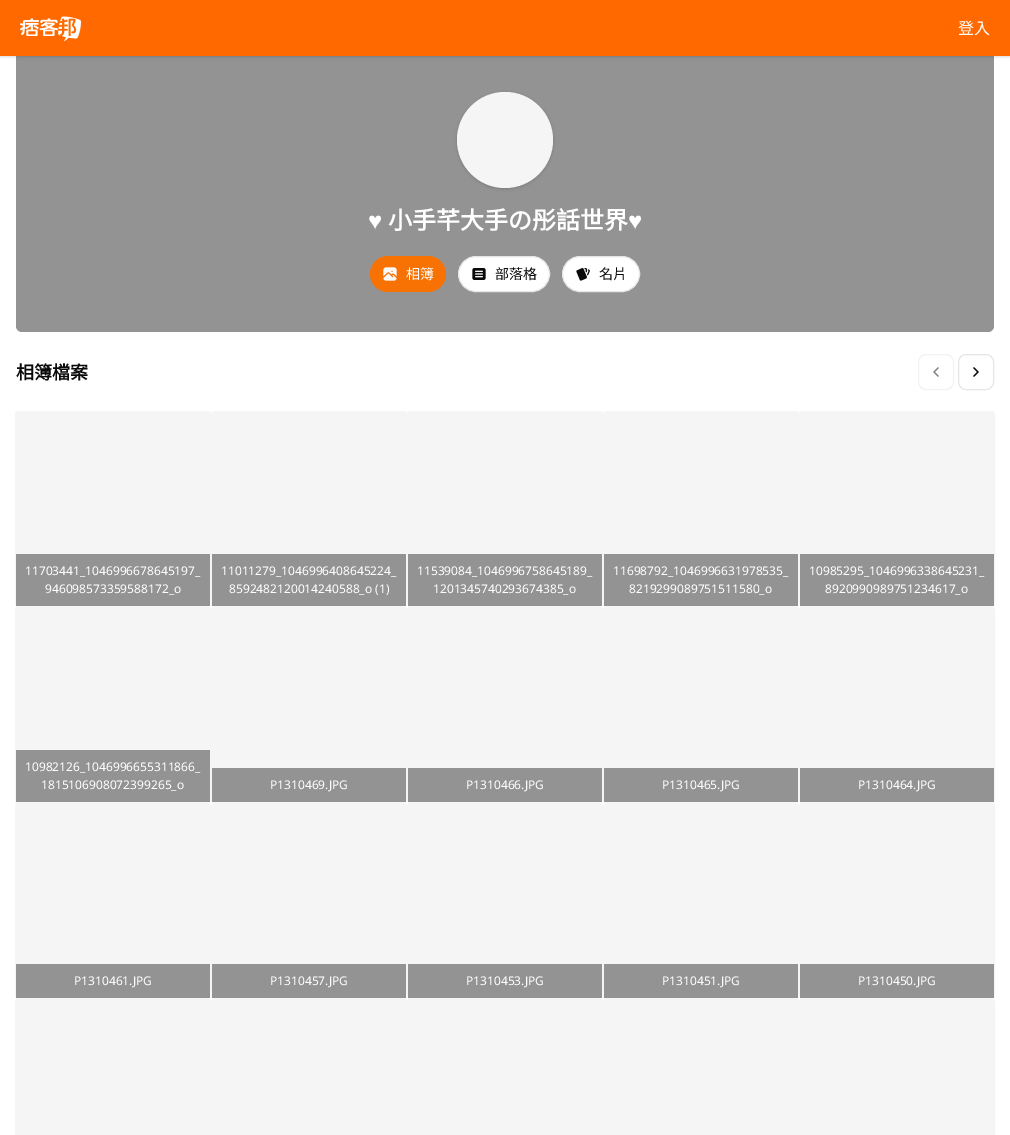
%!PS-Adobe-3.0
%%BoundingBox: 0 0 1010 1135
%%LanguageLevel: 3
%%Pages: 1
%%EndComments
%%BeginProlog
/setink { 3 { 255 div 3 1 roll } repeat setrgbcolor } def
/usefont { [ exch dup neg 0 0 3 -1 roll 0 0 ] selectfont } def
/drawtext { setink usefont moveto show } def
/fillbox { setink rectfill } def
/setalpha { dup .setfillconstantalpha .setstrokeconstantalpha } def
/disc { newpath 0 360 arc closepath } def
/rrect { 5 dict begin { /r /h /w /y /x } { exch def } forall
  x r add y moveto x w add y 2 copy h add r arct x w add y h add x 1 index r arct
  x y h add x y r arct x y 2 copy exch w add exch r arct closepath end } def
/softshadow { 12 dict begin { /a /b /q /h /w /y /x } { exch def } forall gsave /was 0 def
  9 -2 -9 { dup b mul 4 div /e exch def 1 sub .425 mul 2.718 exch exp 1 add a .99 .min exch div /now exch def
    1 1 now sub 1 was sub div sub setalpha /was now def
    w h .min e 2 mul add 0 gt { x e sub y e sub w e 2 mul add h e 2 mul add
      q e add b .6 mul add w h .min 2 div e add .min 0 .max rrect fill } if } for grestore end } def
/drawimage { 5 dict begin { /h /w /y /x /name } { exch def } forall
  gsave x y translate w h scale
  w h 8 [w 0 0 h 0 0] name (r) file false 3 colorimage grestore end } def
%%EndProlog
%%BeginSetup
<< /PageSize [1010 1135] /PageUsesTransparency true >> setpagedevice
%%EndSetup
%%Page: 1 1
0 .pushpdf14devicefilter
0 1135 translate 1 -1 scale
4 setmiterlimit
0 0 1010 1135 255 255 255 fillbox
147 147 147 setink
16 52 978 280 6 rrect fill
0 0 0 setink
1 2 1008 54 0 1 0.1 softshadow
0 1 1010 56 0 1.5 0.1 softshadow
0 0 1010 56 255 105 0 fillbox
(assets/img1.rgb) 20 16 61 25 drawimage
(登入) 958 34 /NotoSansCJKTC-Regular 16 255 255 255 drawtext
0 0 0 setink
458 94 94 94 47 1 0.1 softshadow
457 93 96 96 48 1.5 0.1 softshadow
245 245 245 setink
505 140 48 disc fill
(♥) 368 229 /LiberationSans-Bold 24 255 255 255 drawtext
(小手芊大手の彤話世界) 388 229 /NotoSansCJKTC-Bold 24 255 255 255 drawtext
(♥) 628 229 /LiberationSans-Bold 24 255 255 255 drawtext
248 113 3 setink
370 256 76 36 18 rrect fill
(assets/img2.rgb) 383 267 14 14 drawimage
(相簿) 406 279 /NotoSansCJKTC-Regular 14 255 255 255 drawtext
458.5 256.5 91 35 17.5 rrect gsave fill grestore
229 229 229 setink
stroke
(assets/img3.rgb) 472 268 14 12 drawimage
(部落格) 495 279 /NotoSansCJKTC-Regular 14 10 10 10 drawtext
255 255 255 setink
562.5 256.5 77 35 17.5 rrect gsave fill grestore
229 229 229 setink
stroke
(assets/img4.rgb) 576 268 14 13 drawimage
(名片) 599 279 /NotoSansCJKTC-Regular 14 10 10 10 drawtext
(相簿檔案) 16 379 /NotoSansCJKTC-Bold 18 10 10 10 drawtext
242 242 242 setink
918.5 354.5 35 35 7.5 rrect stroke
133 133 133 setink
1.3 setlinewidth
1 setlinecap
1 setlinejoin
938 376 moveto 934 372 lineto 938 368 lineto stroke
229 229 229 setink
1 setlinewidth
0 setlinecap
0 setlinejoin
958.5 354.5 35 35 7.5 rrect stroke
10 10 10 setink
1.3 setlinewidth
1 setlinecap
1 setlinejoin
974 376 moveto 978 372 lineto 974 368 lineto stroke
245 245 245 setink
1 setlinewidth
0 setlinecap
0 setlinejoin
15.5 411.5 195 195 2.5 rrect stroke
16 412 194 142 245 245 245 fillbox
16 554 194 52 147 147 147 fillbox
(11703441_1046996678645197_) 25 575 /NotoSans-Regular 12 255 255 255 drawtext
(946098573359588172_o) 45 593 /NotoSans-Regular 12 255 255 255 drawtext
245 245 245 setink
211.5 411.5 195 195 2.5 rrect stroke
212 412 194 142 245 245 245 fillbox
212 554 194 52 147 147 147 fillbox
(11011279_1046996408645224_) 221 575 /NotoSans-Regular 12 255 255 255 drawtext
(8592482120014240588_o \(1\)) 229 593 /NotoSans-Regular 12 255 255 255 drawtext
245 245 245 setink
407.5 411.5 195 195 2.5 rrect stroke
408 412 194 142 245 245 245 fillbox
408 554 194 52 147 147 147 fillbox
(11539084_1046996758645189_) 417 575 /NotoSans-Regular 12 255 255 255 drawtext
(1201345740293674385_o) 433 593 /NotoSans-Regular 12 255 255 255 drawtext
245 245 245 setink
603.5 411.5 195 195 2.5 rrect stroke
604 412 194 142 245 245 245 fillbox
604 554 194 52 147 147 147 fillbox
(11698792_1046996631978535_) 613 575 /NotoSans-Regular 12 255 255 255 drawtext
(8219299089751511580_o) 629 593 /NotoSans-Regular 12 255 255 255 drawtext
245 245 245 setink
799.5 411.5 195 195 2.5 rrect stroke
800 412 194 142 245 245 245 fillbox
800 554 194 52 147 147 147 fillbox
(10985295_1046996338645231_) 809 575 /NotoSans-Regular 12 255 255 255 drawtext
(8920990989751234617_o) 825 593 /NotoSans-Regular 12 255 255 255 drawtext
245 245 245 setink
15.5 607.5 195 195 2.5 rrect stroke
16 608 194 142 245 245 245 fillbox
16 750 194 52 147 147 147 fillbox
(10982126_1046996655311866_) 25 771 /NotoSans-Regular 12 255 255 255 drawtext
(1815106908072399265_o) 41 789 /NotoSans-Regular 12 255 255 255 drawtext
245 245 245 setink
211.5 607.5 195 195 2.5 rrect stroke
212 608 194 160 245 245 245 fillbox
212 768 194 34 147 147 147 fillbox
(P1310469.JPG) 270 789 /NotoSans-Regular 12 255 255 255 drawtext
245 245 245 setink
407.5 607.5 195 195 2.5 rrect stroke
408 608 194 160 245 245 245 fillbox
408 768 194 34 147 147 147 fillbox
(P1310466.JPG) 466 789 /NotoSans-Regular 12 255 255 255 drawtext
245 245 245 setink
603.5 607.5 195 195 2.5 rrect stroke
604 608 194 160 245 245 245 fillbox
604 768 194 34 147 147 147 fillbox
(P1310465.JPG) 662 789 /NotoSans-Regular 12 255 255 255 drawtext
245 245 245 setink
799.5 607.5 195 195 2.5 rrect stroke
800 608 194 160 245 245 245 fillbox
800 768 194 34 147 147 147 fillbox
(P1310464.JPG) 858 789 /NotoSans-Regular 12 255 255 255 drawtext
245 245 245 setink
15.5 803.5 195 195 2.5 rrect stroke
16 804 194 160 245 245 245 fillbox
16 964 194 34 147 147 147 fillbox
(P1310461.JPG) 74 985 /NotoSans-Regular 12 255 255 255 drawtext
245 245 245 setink
211.5 803.5 195 195 2.5 rrect stroke
212 804 194 160 245 245 245 fillbox
212 964 194 34 147 147 147 fillbox
(P1310457.JPG) 270 985 /NotoSans-Regular 12 255 255 255 drawtext
245 245 245 setink
407.5 803.5 195 195 2.5 rrect stroke
408 804 194 160 245 245 245 fillbox
408 964 194 34 147 147 147 fillbox
(P1310453.JPG) 466 985 /NotoSans-Regular 12 255 255 255 drawtext
245 245 245 setink
603.5 803.5 195 195 2.5 rrect stroke
604 804 194 160 245 245 245 fillbox
604 964 194 34 147 147 147 fillbox
(P1310451.JPG) 662 985 /NotoSans-Regular 12 255 255 255 drawtext
245 245 245 setink
799.5 803.5 195 195 2.5 rrect stroke
800 804 194 160 245 245 245 fillbox
800 964 194 34 147 147 147 fillbox
(P1310450.JPG) 858 985 /NotoSans-Regular 12 255 255 255 drawtext
245 245 245 setink
15.5 999.5 195 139 2.5 rrect stroke
16 1000 194 135 245 245 245 fillbox
211.5 999.5 195 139 2.5 rrect stroke
212 1000 194 135 245 245 245 fillbox
407.5 999.5 195 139 2.5 rrect stroke
408 1000 194 135 245 245 245 fillbox
603.5 999.5 195 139 2.5 rrect stroke
604 1000 194 135 245 245 245 fillbox
799.5 999.5 195 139 2.5 rrect stroke
800 1000 194 135 245 245 245 fillbox
.poppdf14devicefilter showpage
%%EOF
